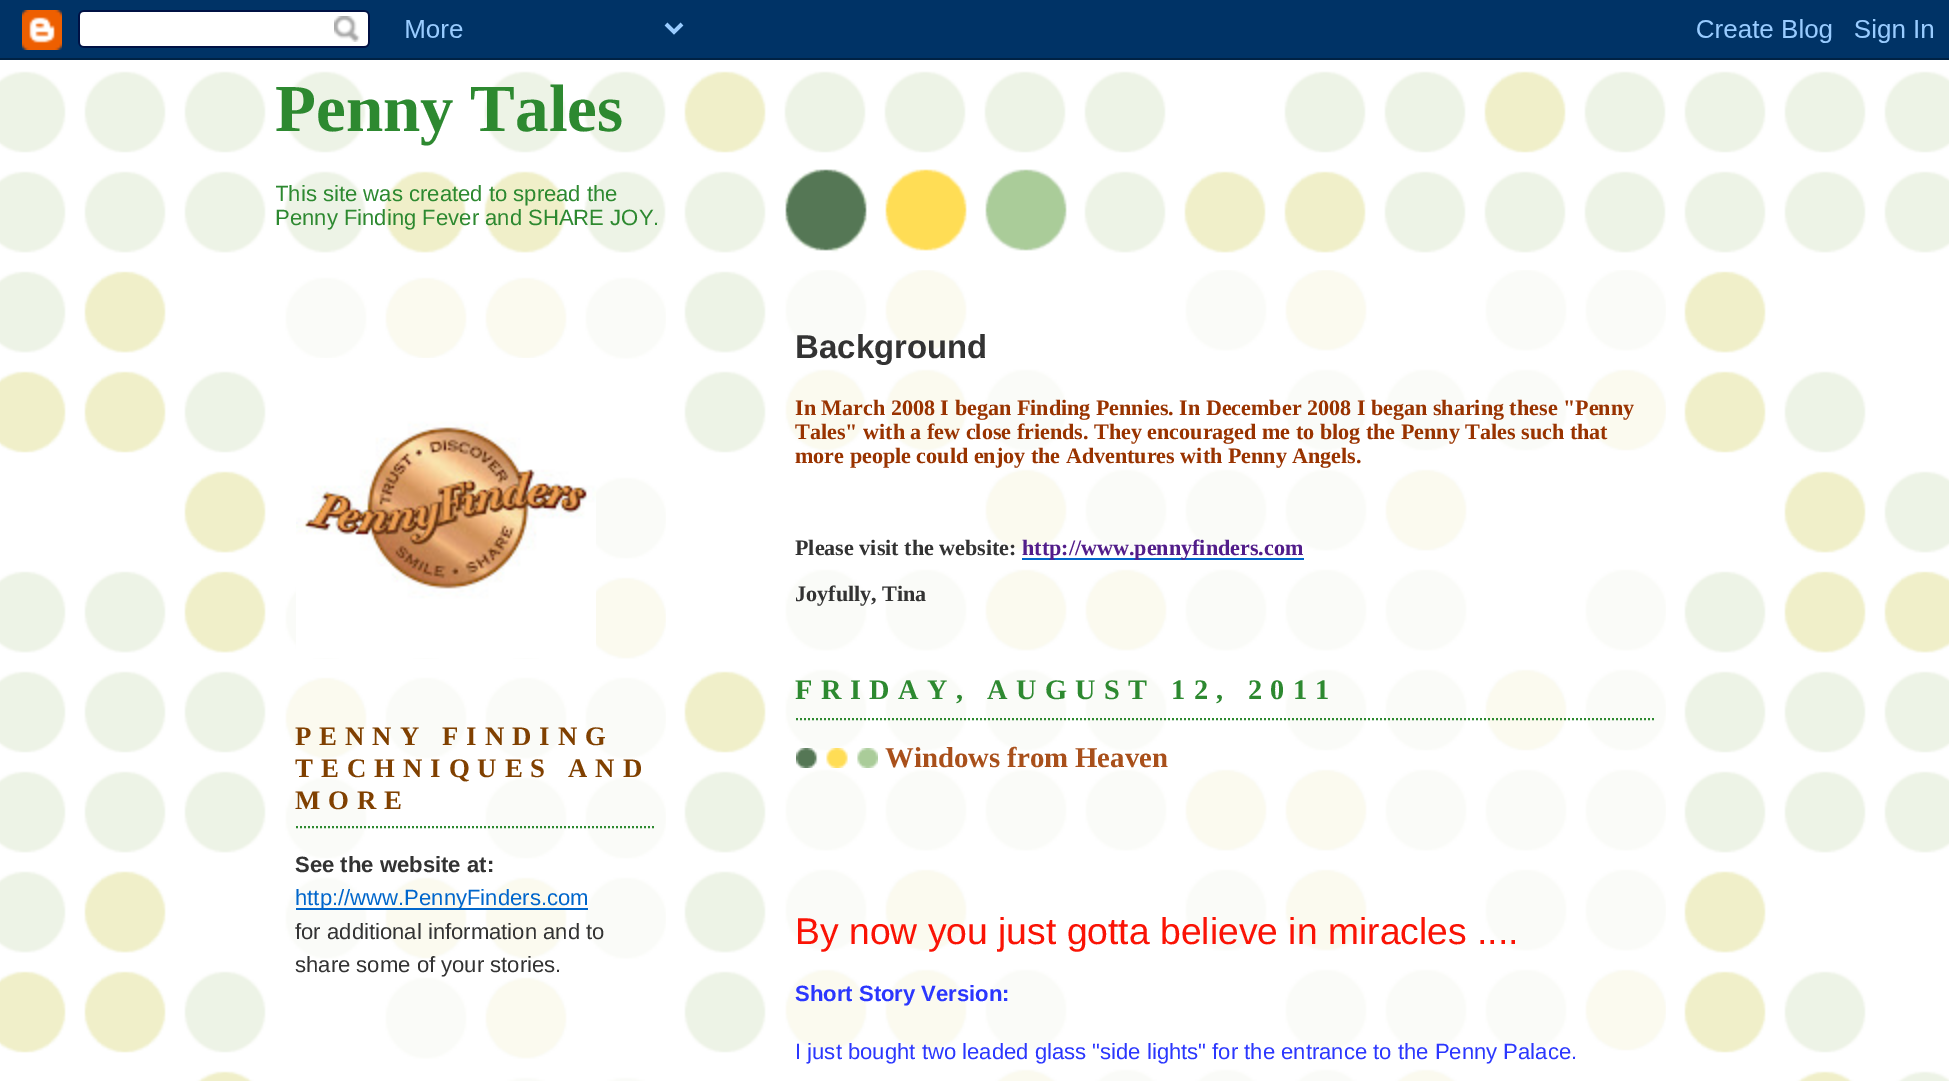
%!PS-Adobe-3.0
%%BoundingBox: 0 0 1949 1081
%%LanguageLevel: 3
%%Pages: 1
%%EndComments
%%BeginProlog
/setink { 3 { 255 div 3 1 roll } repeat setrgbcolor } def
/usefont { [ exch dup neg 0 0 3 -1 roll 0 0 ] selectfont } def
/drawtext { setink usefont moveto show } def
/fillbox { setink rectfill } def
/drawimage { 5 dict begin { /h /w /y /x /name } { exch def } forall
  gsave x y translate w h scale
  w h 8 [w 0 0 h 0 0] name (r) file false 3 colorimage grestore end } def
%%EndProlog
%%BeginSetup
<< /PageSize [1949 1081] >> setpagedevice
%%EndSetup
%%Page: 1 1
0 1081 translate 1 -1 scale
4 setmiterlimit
0 0 1949 1081 255 255 255 fillbox
(assets/img1.rgb) 0 60 1949 1021 drawimage
(assets/img2.rgb) 0 0 1949 60 drawimage
(assets/img3.rgb) 784 169 283 84 drawimage
(Penny Tales) 275 131 /LiberationSerif-Bold 67 45 137 48 drawtext
gsave
276 60 400 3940 rectclip
(This site was created to spread the) 275 201 /LiberationSans-Regular 22.1 45 137 48 drawtext
grestore
(Penny Finding Fever and SHARE JOY.) 275 225 /LiberationSans-Regular 22.1 45 137 48 drawtext
(assets/img4.rgb) 284 271 382 810 drawimage
(assets/img5.rgb) 296 358 300 300 drawimage
2 setlinewidth
[2 2] 0 setdash
296 827 moveto 656 827 lineto stroke
/LiberationSerif-Bold 26.75 usefont
128 64 0 setink
295 745 moveto 8 0 (PENNY FINDING) ashow
295 777 moveto 8 0 (TECHNIQUES AND) ashow
295 809 moveto 8 0 (MORE) ashow
(See the website at:) 295 872 /LiberationSans-Bold 22.1 51 51 51 drawtext
296 908 292 2 0 102 204 fillbox
(http://www.PennyFinders.com) 295 905 /LiberationSans-Regular 22.1 0 102 204 drawtext
(for additional information and to) 295 939 /LiberationSans-Regular 22.1 51 51 51 drawtext
(share some of your stories.) 295 972 /LiberationSans-Regular 22.1 51 51 51 drawtext
(assets/img6.rgb) 784 270 882 811 drawimage
(Background) 795 358 /LiberationSans-Bold 33 51 51 51 drawtext
(In March 2008 I began Finding Pennies. In December 2008 I began sharing these "Penny) 795 415 /LiberationSerif-Bold 22.1 153 51 0 drawtext
(Tales" with a few close friends. They encouraged me to blog the Penny Tales such that) 795 439 /LiberationSerif-Bold 22.1 153 51 0 drawtext
(more people could enjoy the Adventures with Penny Angels.) 795 463 /LiberationSerif-Bold 22.1 153 51 0 drawtext
(Please visit the website:) 795 555 /LiberationSerif-Bold 22.1 51 51 51 drawtext
1022 558 282 2 0 102 204 fillbox
(http://www.pennyfinders.com) 1022 555 /LiberationSerif-Bold 22.1 82 29 138 drawtext
(Joyfully, Tina) 795 601 /LiberationSerif-Bold 22.1 51 51 51 drawtext
45 137 48 setink
796 719 moveto 1656 719 lineto stroke
/LiberationSerif-Bold 28.25 usefont
795 699 moveto 8.5 0 (FRIDAY, AUGUST 12, 2011) ashow
(assets/img7.rgb) 796 748 82 20 drawimage
(Windows from Heaven) 885 767 /LiberationSerif-Bold 28.75 169 80 27 drawtext
(By now you just gotta believe in miracles ....) 795 944 /LiberationSans-Regular 37.3 250 19 5 drawtext
(Short Story Version:) 795 1001 /LiberationSans-Bold 22.1 43 55 254 drawtext
(I just bought two leaded glass "side lights" for the entrance to the Penny Palace.) 795 1059 /LiberationSans-Regular 22.1 43 55 254 drawtext
showpage
%%EOF
